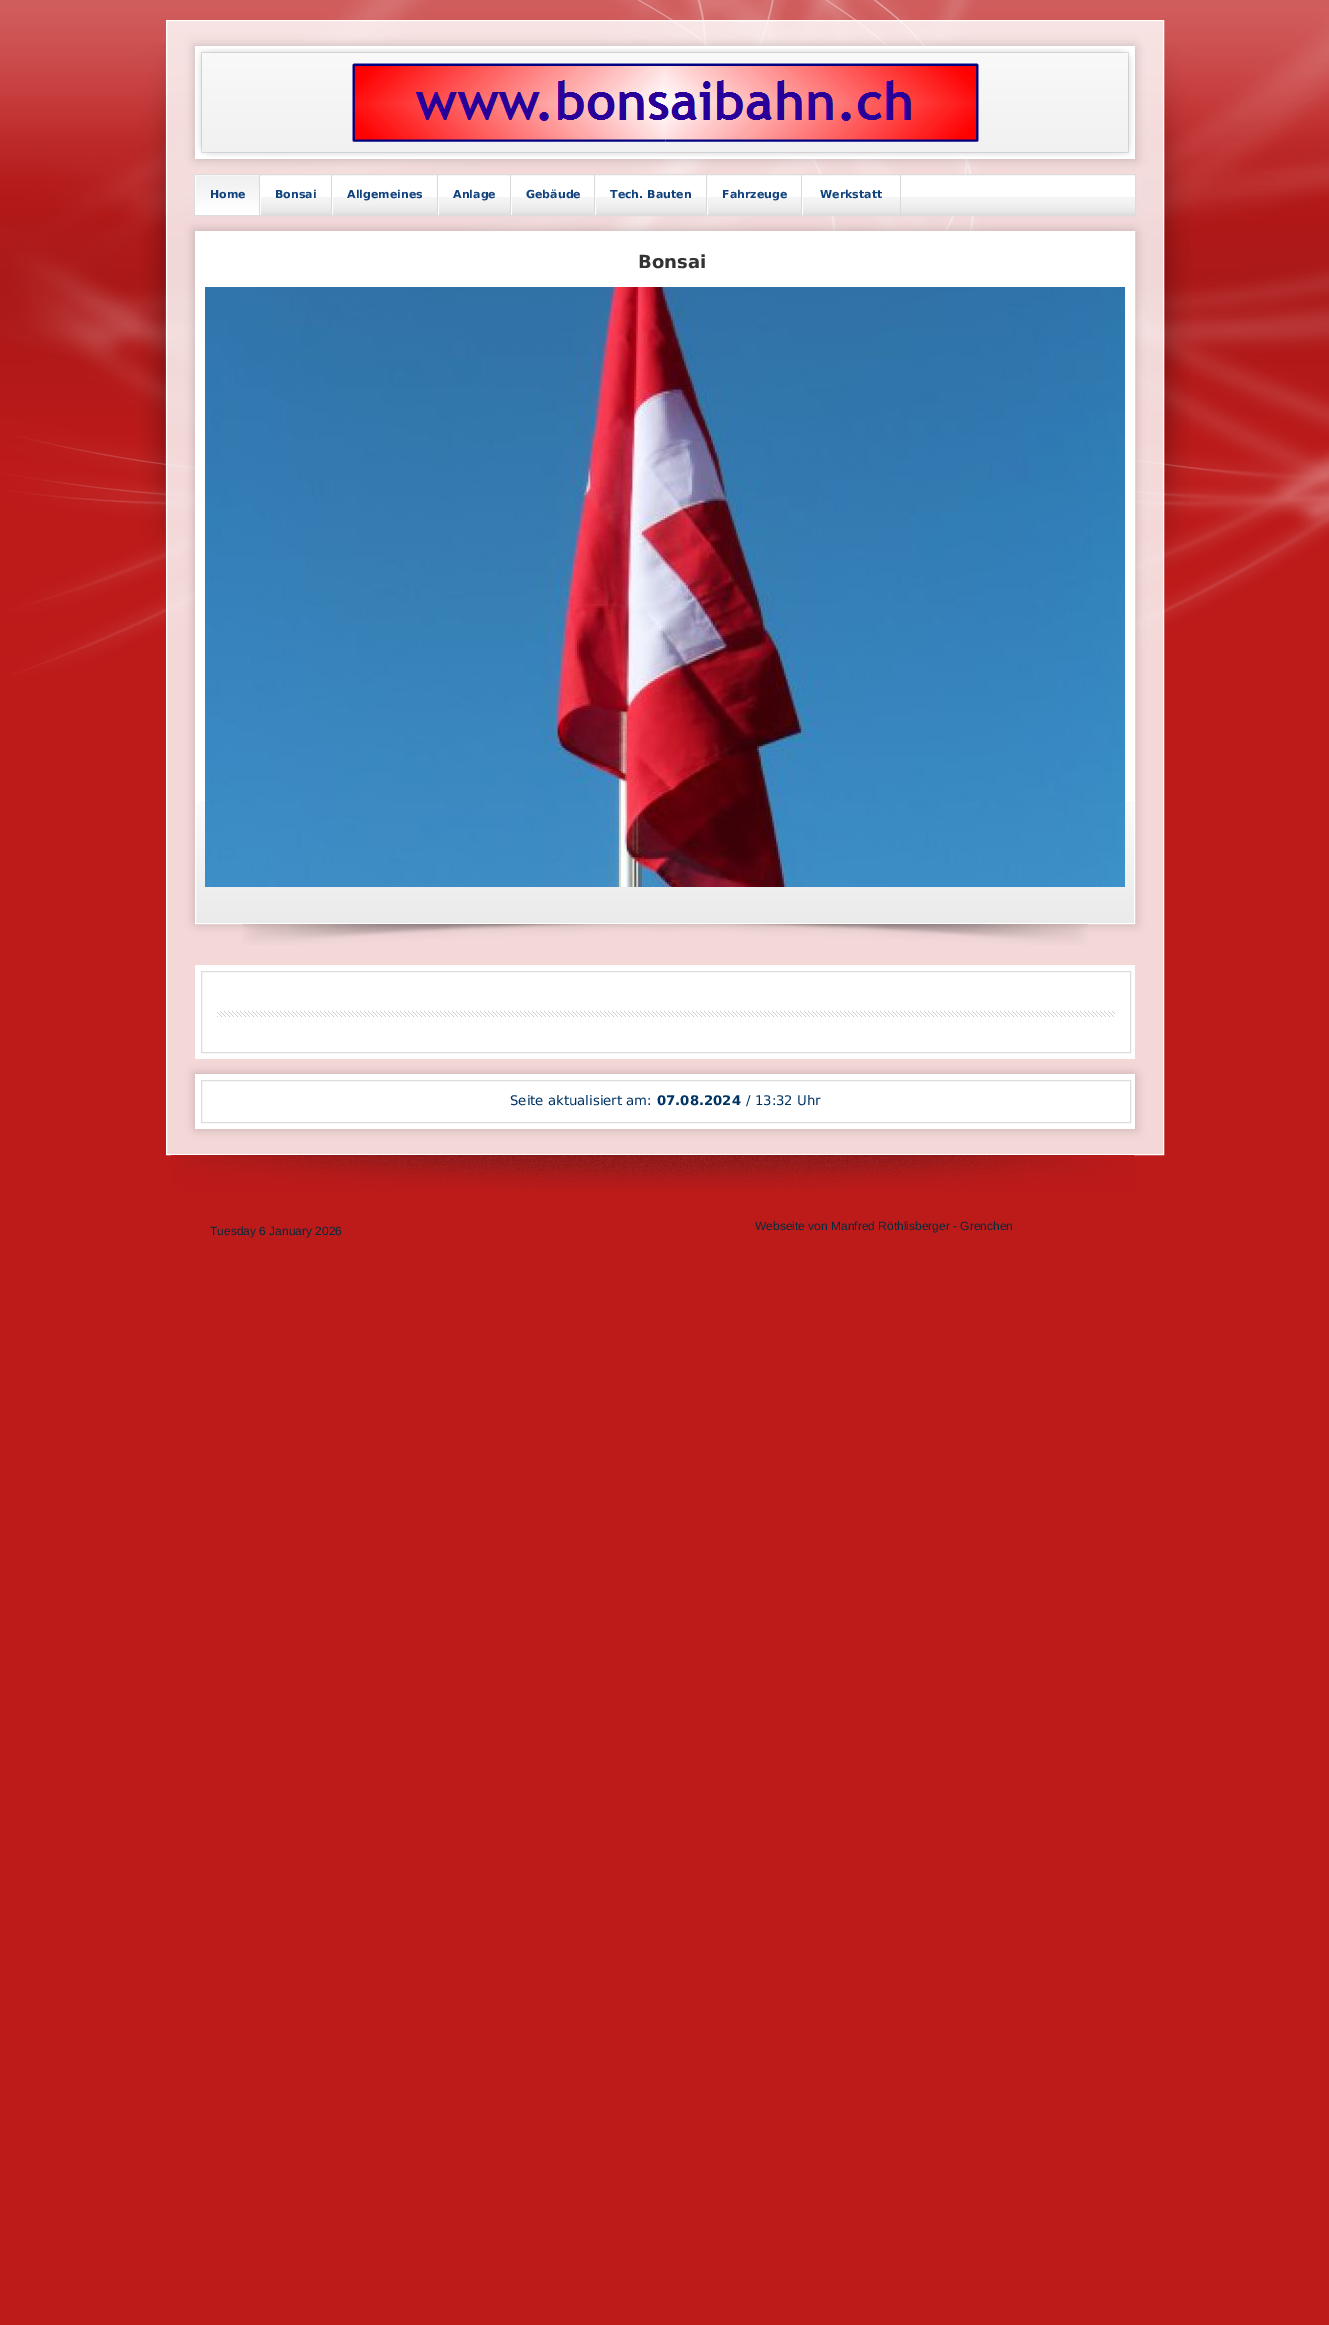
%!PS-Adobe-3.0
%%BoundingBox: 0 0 1329 2325
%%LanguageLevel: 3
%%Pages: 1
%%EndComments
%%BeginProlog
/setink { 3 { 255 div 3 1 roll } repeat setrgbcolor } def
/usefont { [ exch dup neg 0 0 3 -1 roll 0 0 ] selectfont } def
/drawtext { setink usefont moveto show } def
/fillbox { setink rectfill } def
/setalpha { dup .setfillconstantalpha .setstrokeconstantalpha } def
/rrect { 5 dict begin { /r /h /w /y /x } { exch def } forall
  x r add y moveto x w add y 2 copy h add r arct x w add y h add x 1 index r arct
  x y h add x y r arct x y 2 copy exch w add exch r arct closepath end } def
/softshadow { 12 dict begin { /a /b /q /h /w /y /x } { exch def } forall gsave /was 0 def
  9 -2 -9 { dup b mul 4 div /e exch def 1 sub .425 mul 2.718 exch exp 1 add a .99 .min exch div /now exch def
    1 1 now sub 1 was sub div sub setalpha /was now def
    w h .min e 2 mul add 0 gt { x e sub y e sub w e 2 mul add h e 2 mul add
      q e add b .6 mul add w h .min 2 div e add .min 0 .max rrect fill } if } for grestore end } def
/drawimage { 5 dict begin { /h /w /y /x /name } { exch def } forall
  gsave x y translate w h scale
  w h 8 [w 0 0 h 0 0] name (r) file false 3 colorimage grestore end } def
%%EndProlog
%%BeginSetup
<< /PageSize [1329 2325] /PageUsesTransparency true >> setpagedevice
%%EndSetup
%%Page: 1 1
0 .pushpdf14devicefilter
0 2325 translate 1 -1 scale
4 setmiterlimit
0 0 1329 2325 189 26 26 fillbox
(assets/img1.rgb) 0 0 1329 675 drawimage
(assets/img2.rgb) 140 43 1050 526 drawimage
0.83 setalpha
255 255 255 setink
166.5 20.5 moveto 1163.5 20.5 lineto 1163.5 1154.5 lineto 166.5 1154.5 lineto closepath fill
1 setalpha
166.5 20.5 moveto 1163.5 20.5 lineto 1163.5 1154.5 lineto 166.5 1154.5 lineto closepath stroke
0 0 0 setink
193 44 940 113 0 4.5 0.1 softshadow
197 48 940 113 0 4.5 0.1 softshadow
195 46 940 113 255 255 255 fillbox
(assets/img3.rgb) 196 48 938 109 drawimage
196 175 939 22 255 255 255 fillbox
(assets/img4.rgb) 261 197 874 18 drawimage
220 220 221 setink
194.5 174.5 941 41 rectstroke
(assets/img5.rgb) 196 176 63 39 drawimage
259 175 1 40 217 217 217 fillbox
195 175 1 40 255 255 255 fillbox
(Home) 210 198 /DejaVuSans-Bold 11 17 66 125 drawtext
331 175 1 40 217 217 217 fillbox
260 197 1 18 255 255 255 fillbox
(Bonsai) 275 198 /DejaVuSans-Bold 11 17 66 125 drawtext
437 175 1 40 217 217 217 fillbox
332 197 1 18 255 255 255 fillbox
(Allgemeines) 347 198 /DejaVuSans-Bold 11 17 66 125 drawtext
510 175 1 40 217 217 217 fillbox
438 197 1 18 255 255 255 fillbox
(Anlage) 453 198 /DejaVuSans-Bold 11 17 66 125 drawtext
594 175 1 40 217 217 217 fillbox
511 197 1 18 255 255 255 fillbox
(Gebäude) 526 198 /DejaVuSans-Bold 11 17 66 125 drawtext
706 175 1 40 217 217 217 fillbox
595 197 1 18 255 255 255 fillbox
(Tech. Bauten) 610 198 /DejaVuSans-Bold 11 17 66 125 drawtext
801 175 1 40 217 217 217 fillbox
707 197 1 18 255 255 255 fillbox
(Fahrzeuge) 722 198 /DejaVuSans-Bold 11 17 66 125 drawtext
900 175 1 40 217 217 217 fillbox
802 197 1 18 255 255 255 fillbox
(Werkstatt) 820 198 /DejaVuSans-Bold 11 17 66 125 drawtext
0 0 0 setink
193 229 940 693 0 4.5 0.1 softshadow
197 233 940 693 0 4.5 0.1 softshadow
196 232 938 569 255 255 255 fillbox
(assets/img6.rgb) 196 801 938 122 drawimage
195.5 231.5 939 692 rectstroke
(Bonsai) 638 268 /DejaVuSans-Bold 18 51 51 51 drawtext
(assets/img7.rgb) 205 287 920 600 drawimage
(assets/img8.rgb) 242 924 846 21 drawimage
195 965 940 94 255 255 255 fillbox
220 220 220 setink
201.5 971.5 929 81 rectstroke
(assets/img9.rgb) 217 1011 898 6 drawimage
0 0 0 setink
193 1072 940 55 0 4.5 0.1 softshadow
197 1076 940 55 0 4.5 0.1 softshadow
195 1074 940 55 255 255 255 fillbox
220 220 220 setink
201.5 1080.5 929 42 rectstroke
(Seite aktualisiert am:) 510 1105 /DejaVuSans-Regular 13.25 0 51 102 drawtext
(07.08.2024) 657 1105 /DejaVuSans-Bold 13.25 0 51 102 drawtext
(/ 13:32 Uhr) 746 1105 /DejaVuSans-Regular 13.25 0 51 102 drawtext
(assets/img10.rgb) 171 1155 963 36 drawimage
(Tuesday 6 January 2026) 210 1235 /LiberationSans-Regular 12 4 43 60 drawtext
(Webseite von Manfred Röthlisberger - Grenchen) 755 1230 /LiberationSans-Regular 12 4 43 60 drawtext
.poppdf14devicefilter showpage
%%EOF
